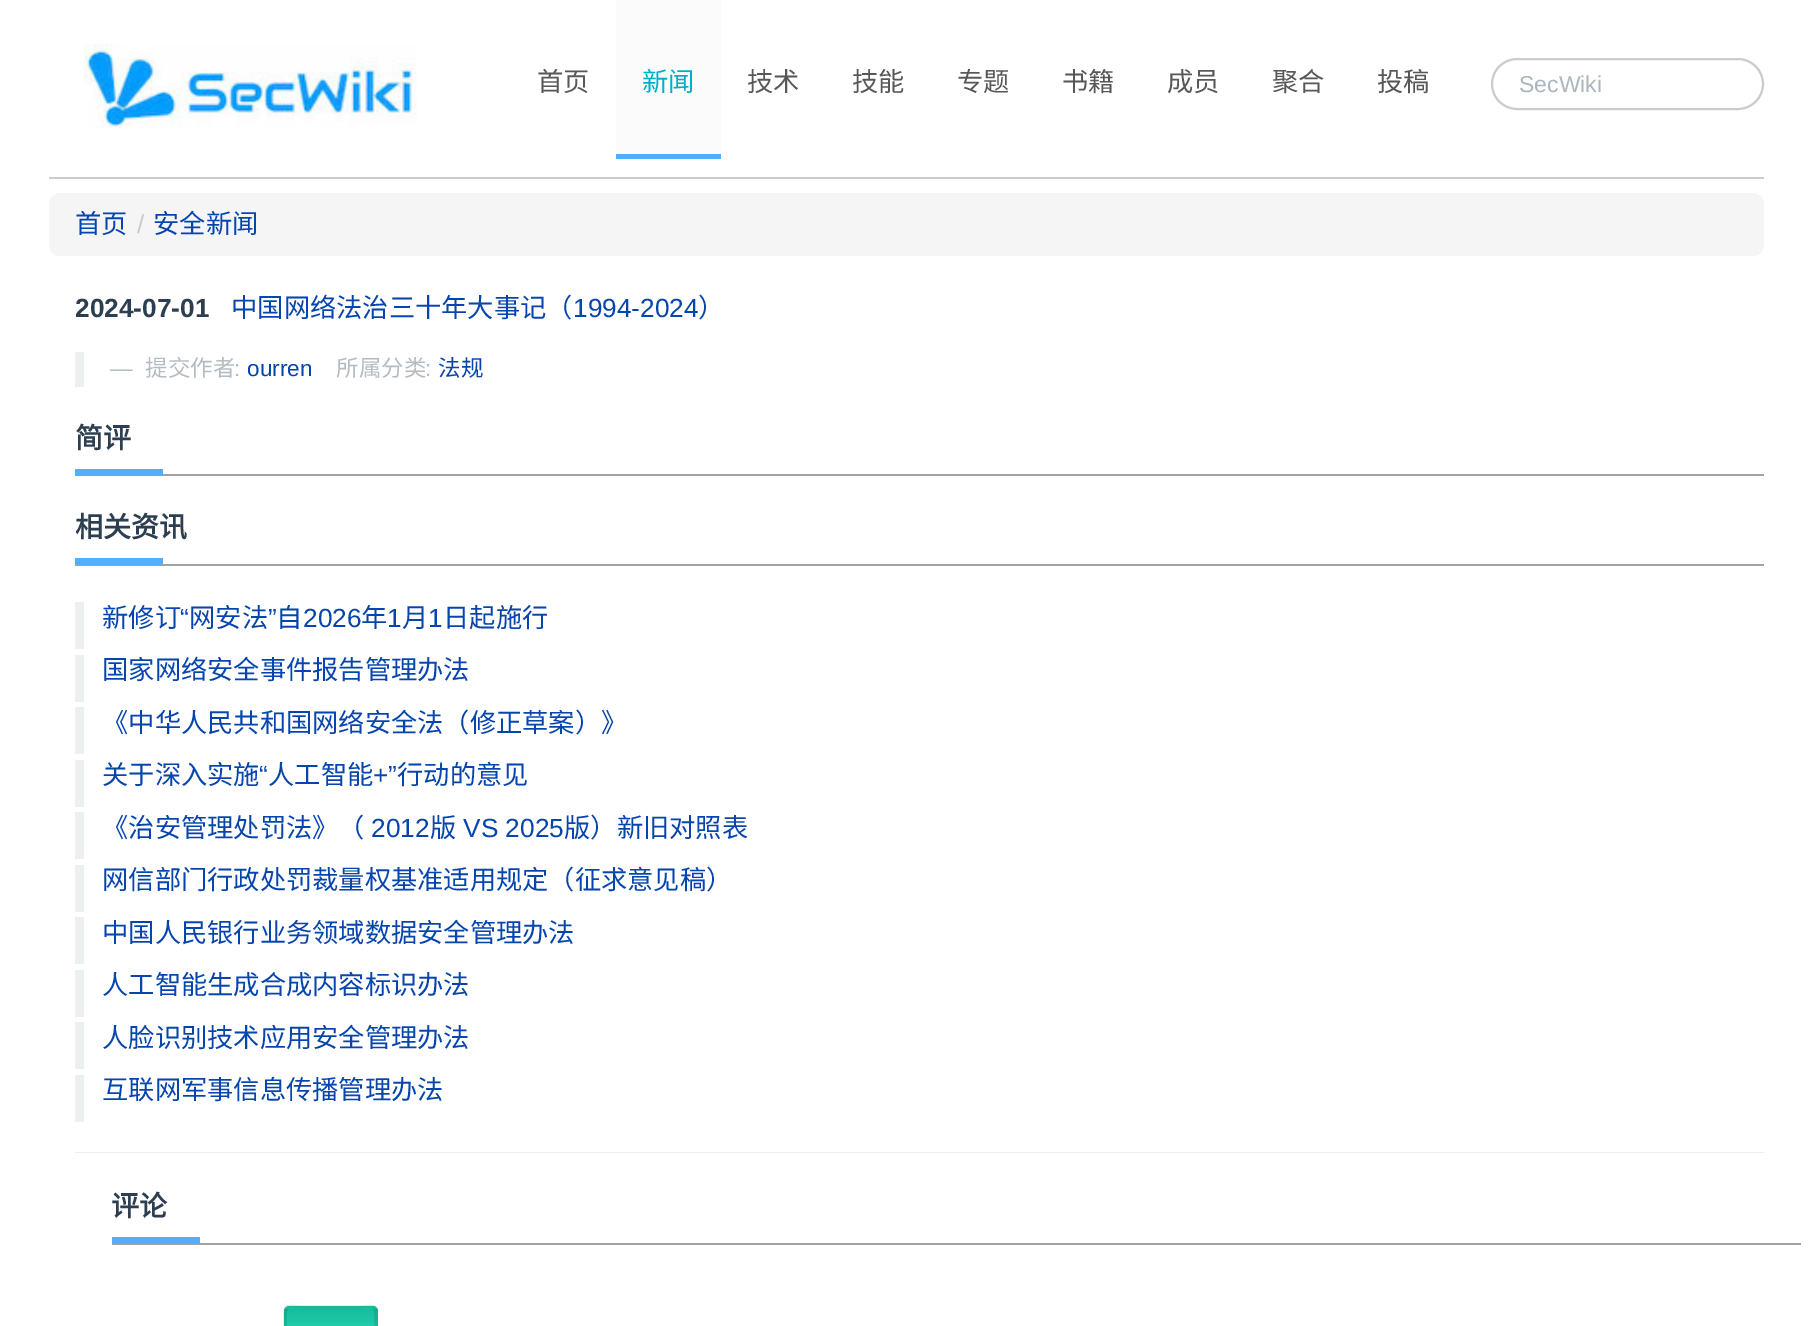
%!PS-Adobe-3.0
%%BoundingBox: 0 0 1812 1326
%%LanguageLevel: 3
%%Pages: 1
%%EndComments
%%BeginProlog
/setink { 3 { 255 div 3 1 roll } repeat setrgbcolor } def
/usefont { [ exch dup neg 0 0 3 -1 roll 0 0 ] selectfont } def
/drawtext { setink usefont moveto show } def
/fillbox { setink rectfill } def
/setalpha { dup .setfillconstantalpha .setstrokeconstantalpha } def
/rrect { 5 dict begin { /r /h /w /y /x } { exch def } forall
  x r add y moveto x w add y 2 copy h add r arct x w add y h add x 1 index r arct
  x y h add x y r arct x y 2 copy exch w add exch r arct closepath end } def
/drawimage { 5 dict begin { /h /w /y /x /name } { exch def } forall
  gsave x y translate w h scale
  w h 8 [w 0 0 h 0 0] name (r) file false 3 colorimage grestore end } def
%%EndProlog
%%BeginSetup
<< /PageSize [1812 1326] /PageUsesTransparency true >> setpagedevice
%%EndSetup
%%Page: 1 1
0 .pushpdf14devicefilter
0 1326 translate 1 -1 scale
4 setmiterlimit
0 0 1812 1326 255 255 255 fillbox
49 177 1715 2 204 204 204 fillbox
(assets/img1.rgb) 84 43 333 86 drawimage
(首页) 537 91 /NotoSansCJKSC-Regular 26.25 88 88 88 drawtext
616 0 105 154 251 251 251 fillbox
616 154 105 5 82 174 255 fillbox
(新闻) 642 91 /NotoSansCJKSC-Regular 26.25 0 174 200 drawtext
(技术) 747 91 /NotoSansCJKSC-Regular 26.25 88 88 88 drawtext
(技能) 852 91 /NotoSansCJKSC-Regular 26.25 88 88 88 drawtext
(专题) 957 91 /NotoSansCJKSC-Regular 26.25 88 88 88 drawtext
(书籍) 1062 91 /NotoSansCJKSC-Regular 26.25 88 88 88 drawtext
(成员) 1167 91 /NotoSansCJKSC-Regular 26.25 88 88 88 drawtext
(聚合) 1272 91 /NotoSansCJKSC-Regular 26.25 88 88 88 drawtext
(投稿) 1377 91 /NotoSansCJKSC-Regular 26.25 88 88 88 drawtext
204 204 204 setink
2 setlinewidth
1492 59 271 50 25 rrect stroke
(SecWiki) 1519 92 /LiberationSans-Regular 23 172 182 192 drawtext
245 245 245 setink
49 193 1715 63 11 rrect fill
(首页) 75 233 /NotoSansCJKSC-Regular 26.25 6 69 173 drawtext
(/) 137 233 /LiberationSans-Regular 26.25 204 204 204 drawtext
(安全新闻) 153 233 /NotoSansCJKSC-Regular 26.25 6 69 173 drawtext
(2024-07-01) 75 317 /LiberationSans-Bold 26.25 44 62 80 drawtext
(中国网络法治三十年大事记（) 231 317 /NotoSansCJKSC-Regular 26.25 6 69 173 drawtext
(1994-2024) 573 317 /LiberationSans-Regular 26.25 6 69 173 drawtext
(）) 698 317 /NotoSansCJKSC-Regular 26.25 6 69 173 drawtext
75 352 9 35 236 240 241 fillbox
(—) 110 376 /LiberationSans-Regular 22.5 180 188 194 drawtext
(提交作者) 145 376 /NotoSansCJKSC-Regular 22.5 180 188 194 drawtext
(:) 234 376 /LiberationSans-Regular 22.5 180 188 194 drawtext
(ourren) 247 376 /LiberationSans-Regular 22.5 6 69 173 drawtext
(所属分类) 336 376 /NotoSansCJKSC-Regular 22.5 180 188 194 drawtext
(:) 425 376 /LiberationSans-Regular 22.5 180 188 194 drawtext
(法规) 438 376 /NotoSansCJKSC-Regular 22.5 6 69 173 drawtext
163 474 1601 2 164 161 161 fillbox
(简评) 75 448 /NotoSansCJKSC-Bold 28 44 62 80 drawtext
75 469 88 7 82 174 255 fillbox
75 564 1689 2 164 161 161 fillbox
(相关资讯) 75 537 /NotoSansCJKSC-Bold 28 44 62 80 drawtext
75 558 88 7 82 174 255 fillbox
(新修订) 102 627 /NotoSansCJKSC-Regular 26.25 6 69 173 drawtext
75 602 9 47 236 240 241 fillbox
(“) 180 627 /LiberationSans-Regular 26.25 6 69 173 drawtext
(网安法) 189 627 /NotoSansCJKSC-Regular 26.25 6 69 173 drawtext
(”) 268 627 /LiberationSans-Regular 26.25 6 69 173 drawtext
(自) 276 627 /NotoSansCJKSC-Regular 26.25 6 69 173 drawtext
(2026) 303 627 /LiberationSans-Regular 26.25 6 69 173 drawtext
(年) 361 627 /NotoSansCJKSC-Regular 26.25 6 69 173 drawtext
(1) 387 627 /LiberationSans-Regular 26.25 6 69 173 drawtext
(月) 402 627 /NotoSansCJKSC-Regular 26.25 6 69 173 drawtext
(1) 428 627 /LiberationSans-Regular 26.25 6 69 173 drawtext
(日起施行) 443 627 /NotoSansCJKSC-Regular 26.25 6 69 173 drawtext
(国家网络安全事件报告管理办法) 102 679 /NotoSansCJKSC-Regular 26.25 6 69 173 drawtext
75 655 9 47 236 240 241 fillbox
(《中华人民共和国网络安全法（修正草案）》) 102 732 /NotoSansCJKSC-Regular 26.25 6 69 173 drawtext
75 707 9 47 236 240 241 fillbox
(关于深入实施) 102 784 /NotoSansCJKSC-Regular 26.25 6 69 173 drawtext
75 760 9 47 236 240 241 fillbox
(“) 259 784 /LiberationSans-Regular 26.25 6 69 173 drawtext
(人工智能) 268 784 /NotoSansCJKSC-Regular 26.25 6 69 173 drawtext
(+”) 373 784 /LiberationSans-Regular 26.25 6 69 173 drawtext
(行动的意见) 397 784 /NotoSansCJKSC-Regular 26.25 6 69 173 drawtext
(《治安管理处罚法》（) 102 837 /NotoSansCJKSC-Regular 26.25 6 69 173 drawtext
75 812 9 47 236 240 241 fillbox
(2012) 371 837 /LiberationSans-Regular 26.25 6 69 173 drawtext
(版) 430 837 /NotoSansCJKSC-Regular 26.25 6 69 173 drawtext
(VS 2025) 463 837 /LiberationSans-Regular 26.25 6 69 173 drawtext
(版）新旧对照表) 564 837 /NotoSansCJKSC-Regular 26.25 6 69 173 drawtext
(网信部门行政处罚裁量权基准适用规定（征求意见稿）) 102 889 /NotoSansCJKSC-Regular 26.25 6 69 173 drawtext
75 865 9 47 236 240 241 fillbox
(中国人民银行业务领域数据安全管理办法) 102 942 /NotoSansCJKSC-Regular 26.25 6 69 173 drawtext
75 917 9 47 236 240 241 fillbox
(人工智能生成合成内容标识办法) 102 994 /NotoSansCJKSC-Regular 26.25 6 69 173 drawtext
75 970 9 47 236 240 241 fillbox
(人脸识别技术应用安全管理办法) 102 1047 /NotoSansCJKSC-Regular 26.25 6 69 173 drawtext
75 1022 9 47 236 240 241 fillbox
(互联网军事信息传播管理办法) 102 1099 /NotoSansCJKSC-Regular 26.25 6 69 173 drawtext
75 1075 9 47 236 240 241 fillbox
75 1152 1689 1 236 240 241 fillbox
112 1243 1689 2 164 161 161 fillbox
(评论) 111 1216 /NotoSansCJKSC-Bold 28 44 62 80 drawtext
112 1237 88 7 82 174 255 fillbox
29 204 170 setink
284 1306 94 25 5 rrect fill
gsave 284 1309 moveto 378 1309 lineto 378 1324 lineto 284 1324 lineto closepath clip newpath
<< /ShadingType 2 /ColorSpace /DeviceRGB /Coords [331 1309 331 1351] /Extend [true true] /Function << /FunctionType 2 /Domain [0 1] /C0 [0.094 0.737 0.612] /C1 [0.141 0.89 0.745] /N 1 >> >> shfill grestore
0.1 setalpha
0 0 0 setink
3.5 setlinewidth
286.5 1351.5 moveto 284 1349.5 285 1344.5 285 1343 curveto 285 1317 lineto 285 1303.5 286.5 1307 303 1307 curveto 359 1307 lineto 375 1307 376 1303.5 376 1317 curveto 376 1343 lineto 376 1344.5 377.5 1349.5 375 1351.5 curveto stroke
.poppdf14devicefilter showpage
%%EOF
